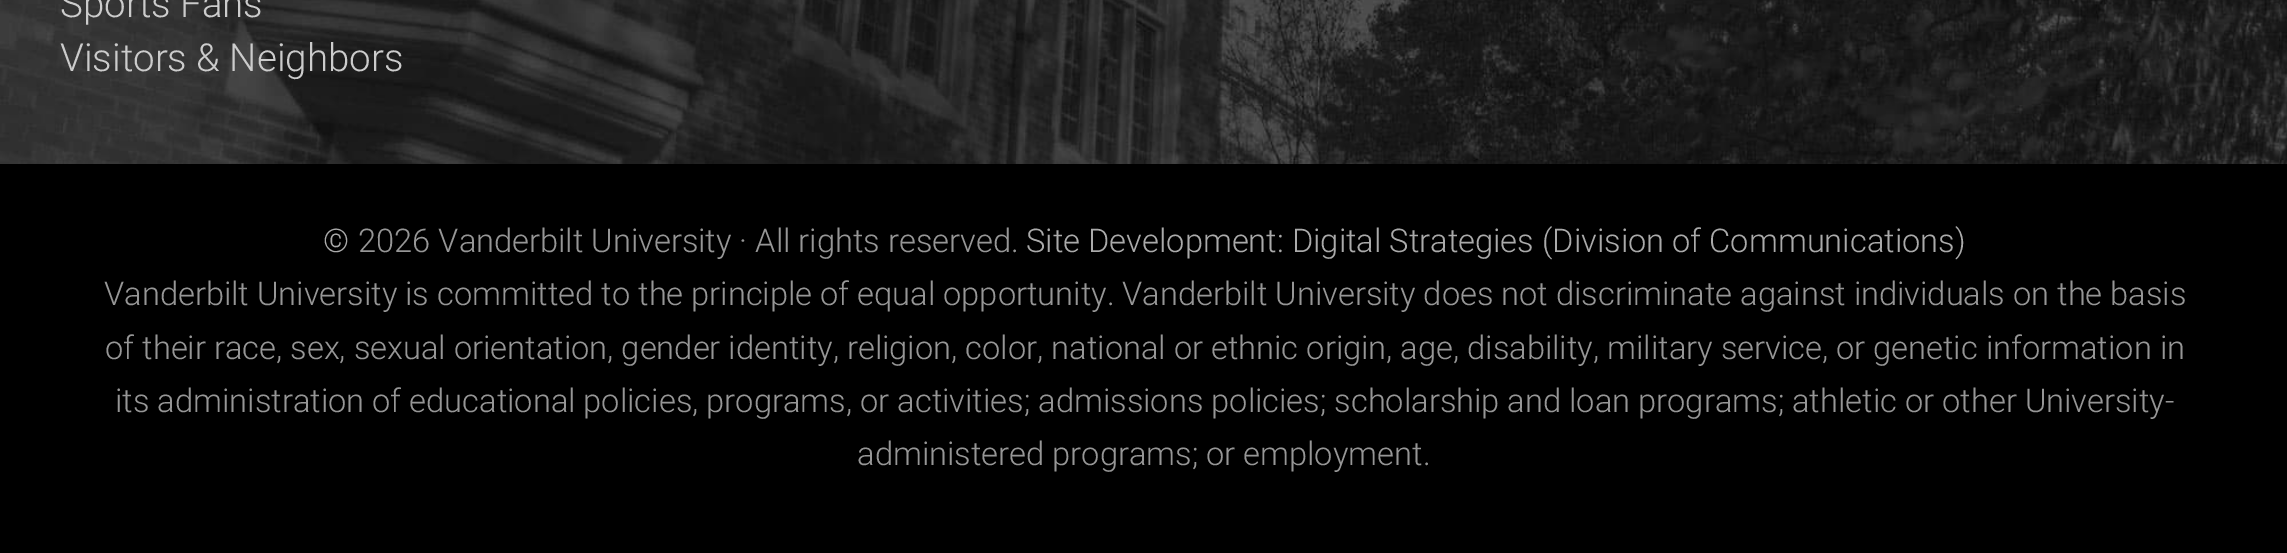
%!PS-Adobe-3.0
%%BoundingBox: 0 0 2287 553
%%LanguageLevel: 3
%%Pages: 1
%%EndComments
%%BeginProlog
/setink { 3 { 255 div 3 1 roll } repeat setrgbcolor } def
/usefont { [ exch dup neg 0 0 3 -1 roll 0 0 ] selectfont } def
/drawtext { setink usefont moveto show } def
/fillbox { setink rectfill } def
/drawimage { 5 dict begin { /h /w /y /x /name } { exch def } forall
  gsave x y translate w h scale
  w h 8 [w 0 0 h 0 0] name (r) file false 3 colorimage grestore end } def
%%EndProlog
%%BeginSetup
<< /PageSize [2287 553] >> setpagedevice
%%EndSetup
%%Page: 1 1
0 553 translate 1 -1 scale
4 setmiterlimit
0 0 2287 553 0 0 0 fillbox
(assets/img1.rgb) 0 0 2287 164 drawimage
(Sports Fans) 60 17 /Roboto-Light 38.5 204 204 204 drawtext
(Visitors & Neighbors) 60 71 /Roboto-Light 38.5 204 204 204 drawtext
(©) 323 252 /Roboto-Light 32.65 170 170 170 drawtext
(2026 Vanderbilt University · All rights reserved.) 358 252 /Roboto-Light 32.65 150 150 150 drawtext
(Site Development: Digital Strategies \(Division of Communications\)) 1026 252 /Roboto-Light 32.65 170 170 170 drawtext
(Vanderbilt University is committed to the principle of equal opportunity. Vanderbilt University does not discriminate against individuals on the basis) 104 305 /Roboto-Light 32.65 150 150 150 drawtext
(of their race, sex, sexual orientation, gender identity, religion, color, national or ethnic origin, age, disability, military service, or genetic information in) 105 359 /Roboto-Light 32.65 150 150 150 drawtext
(its administration of educational policies, programs, or activities; admissions policies; scholarship and loan programs; athletic or other University-) 115 412 /Roboto-Light 32.65 150 150 150 drawtext
(administered programs; or employment.) 857 465 /Roboto-Light 32.65 150 150 150 drawtext
showpage
%%EOF
